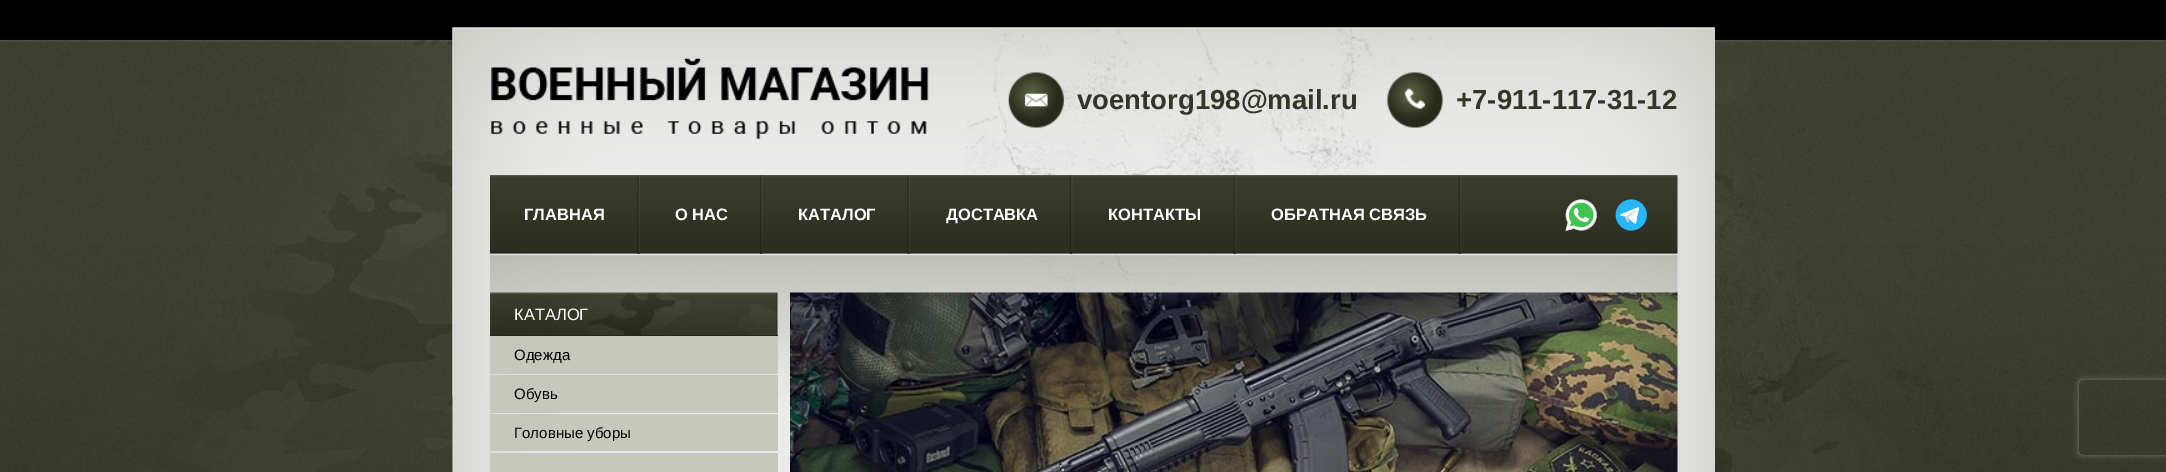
%!PS-Adobe-3.0
%%BoundingBox: 0 0 2166 472
%%LanguageLevel: 3
%%Pages: 1
%%EndComments
%%BeginProlog
/setink { 3 { 255 div 3 1 roll } repeat setrgbcolor } def
/usefont { [ exch dup neg 0 0 3 -1 roll 0 0 ] selectfont } def
/drawtext { setink usefont moveto show } def
/fillbox { setink rectfill } def
/setalpha { dup .setfillconstantalpha .setstrokeconstantalpha } def
/rrect { 5 dict begin { /r /h /w /y /x } { exch def } forall
  x r add y moveto x w add y 2 copy h add r arct x w add y h add x 1 index r arct
  x y h add x y r arct x y 2 copy exch w add exch r arct closepath end } def
/softshadow { 12 dict begin { /a /b /q /h /w /y /x } { exch def } forall gsave /was 0 def
  9 -2 -9 { dup b mul 4 div /e exch def 1 sub .425 mul 2.718 exch exp 1 add a .99 .min exch div /now exch def
    1 1 now sub 1 was sub div sub setalpha /was now def
    w h .min e 2 mul add 0 gt { x e sub y e sub w e 2 mul add h e 2 mul add
      q e add b .6 mul add w h .min 2 div e add .min 0 .max rrect fill } if } for grestore end } def
/drawimage { 5 dict begin { /h /w /y /x /name } { exch def } forall
  gsave x y translate w h scale
  w h 8 [w 0 0 h 0 0] name (r) file false 3 colorimage grestore end } def
%%EndProlog
%%BeginSetup
<< /PageSize [2166 472] /PageUsesTransparency true >> setpagedevice
%%EndSetup
%%Page: 1 1
0 .pushpdf14devicefilter
0 472 translate 1 -1 scale
4 setmiterlimit
0 0 2166 472 255 255 255 fillbox
(assets/img1.rgb) 0 0 2166 39 drawimage
(assets/img2.rgb) 0 39 2166 433 drawimage
(assets/img3.rgb) 452 27 1263 445 drawimage
(assets/img4.rgb) 452 27 1263 370 drawimage
(assets/img5.rgb) 491 58 438 81 drawimage
(assets/img6.rgb) 1008 72 56 56 drawimage
(voentorg198@mail.ru) 1077 109 /LiberationSans-Bold 27.5 51 53 38 drawtext
(assets/img7.rgb) 1387 72 56 56 drawimage
(+7-911-117-31-12) 1456 109 /LiberationSans-Bold 27.5 51 53 38 drawtext
(assets/img14.rgb) 490 253 1188 143 drawimage
(assets/img8.rgb) 490 175 1188 79 drawimage
(assets/img9.rgb) 637 175 3 79 drawimage
(ГЛАВНАЯ) 524 220 /LiberationSans-Bold 16.5 255 255 255 drawtext
(assets/img10.rgb) 760 175 3 79 drawimage
(О НАС) 675 220 /LiberationSans-Bold 16.5 255 255 255 drawtext
(assets/img9.rgb) 907 175 3 79 drawimage
(КАТАЛОГ) 798 220 /LiberationSans-Bold 16.5 255 255 255 drawtext
(assets/img10.rgb) 1070 175 3 79 drawimage
(ДОСТАВКА) 946 220 /LiberationSans-Bold 16.5 255 255 255 drawtext
(assets/img11.rgb) 1233 175 4 79 drawimage
(КОНТАКТЫ) 1108 220 /LiberationSans-Bold 16.5 255 255 255 drawtext
(assets/img11.rgb) 1458 175 4 79 drawimage
(ОБРАТНАЯ СВЯЗЬ) 1271 220 /LiberationSans-Bold 16.5 255 255 255 drawtext
(assets/img12.rgb) 1565 199 32 32 drawimage
(assets/img13.rgb) 1615 199 32 32 drawimage
(assets/img15.rgb) 490 292 288 43 drawimage
490 335 288 1 37 39 31 fillbox
(КАТАЛОГ) 514 320 /LiberationSans-Regular 16.5 255 255 255 drawtext
490 336 288 38 198 200 189 fillbox
(Одежда) 514 360 /LiberationSans-Regular 15 0 0 0 drawtext
490 375 288 38 198 200 189 fillbox
(Обувь) 514 399 /LiberationSans-Regular 15 0 0 0 drawtext
490 414 288 37 198 200 189 fillbox
(Головные уборы) 514 438 /LiberationSans-Regular 15 0 0 0 drawtext
490 453 288 19 198 200 189 fillbox
(assets/img16.rgb) 790 292 888 180 drawimage
gsave
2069 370 moveto 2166 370 lineto 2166 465 lineto 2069 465 lineto closepath 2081.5 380 moveto 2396.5 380 lineto 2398 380 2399 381 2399 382.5 curveto 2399 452.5 lineto 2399 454 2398 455 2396.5 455 curveto 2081.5 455 lineto 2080 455 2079 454 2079 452.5 curveto 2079 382.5 lineto 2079 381 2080 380 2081.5 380 curveto closepath eoclip newpath
128 128 128 setink
2079 380 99 75 2.5 3 1 softshadow
grestore
.poppdf14devicefilter showpage
%%EOF
